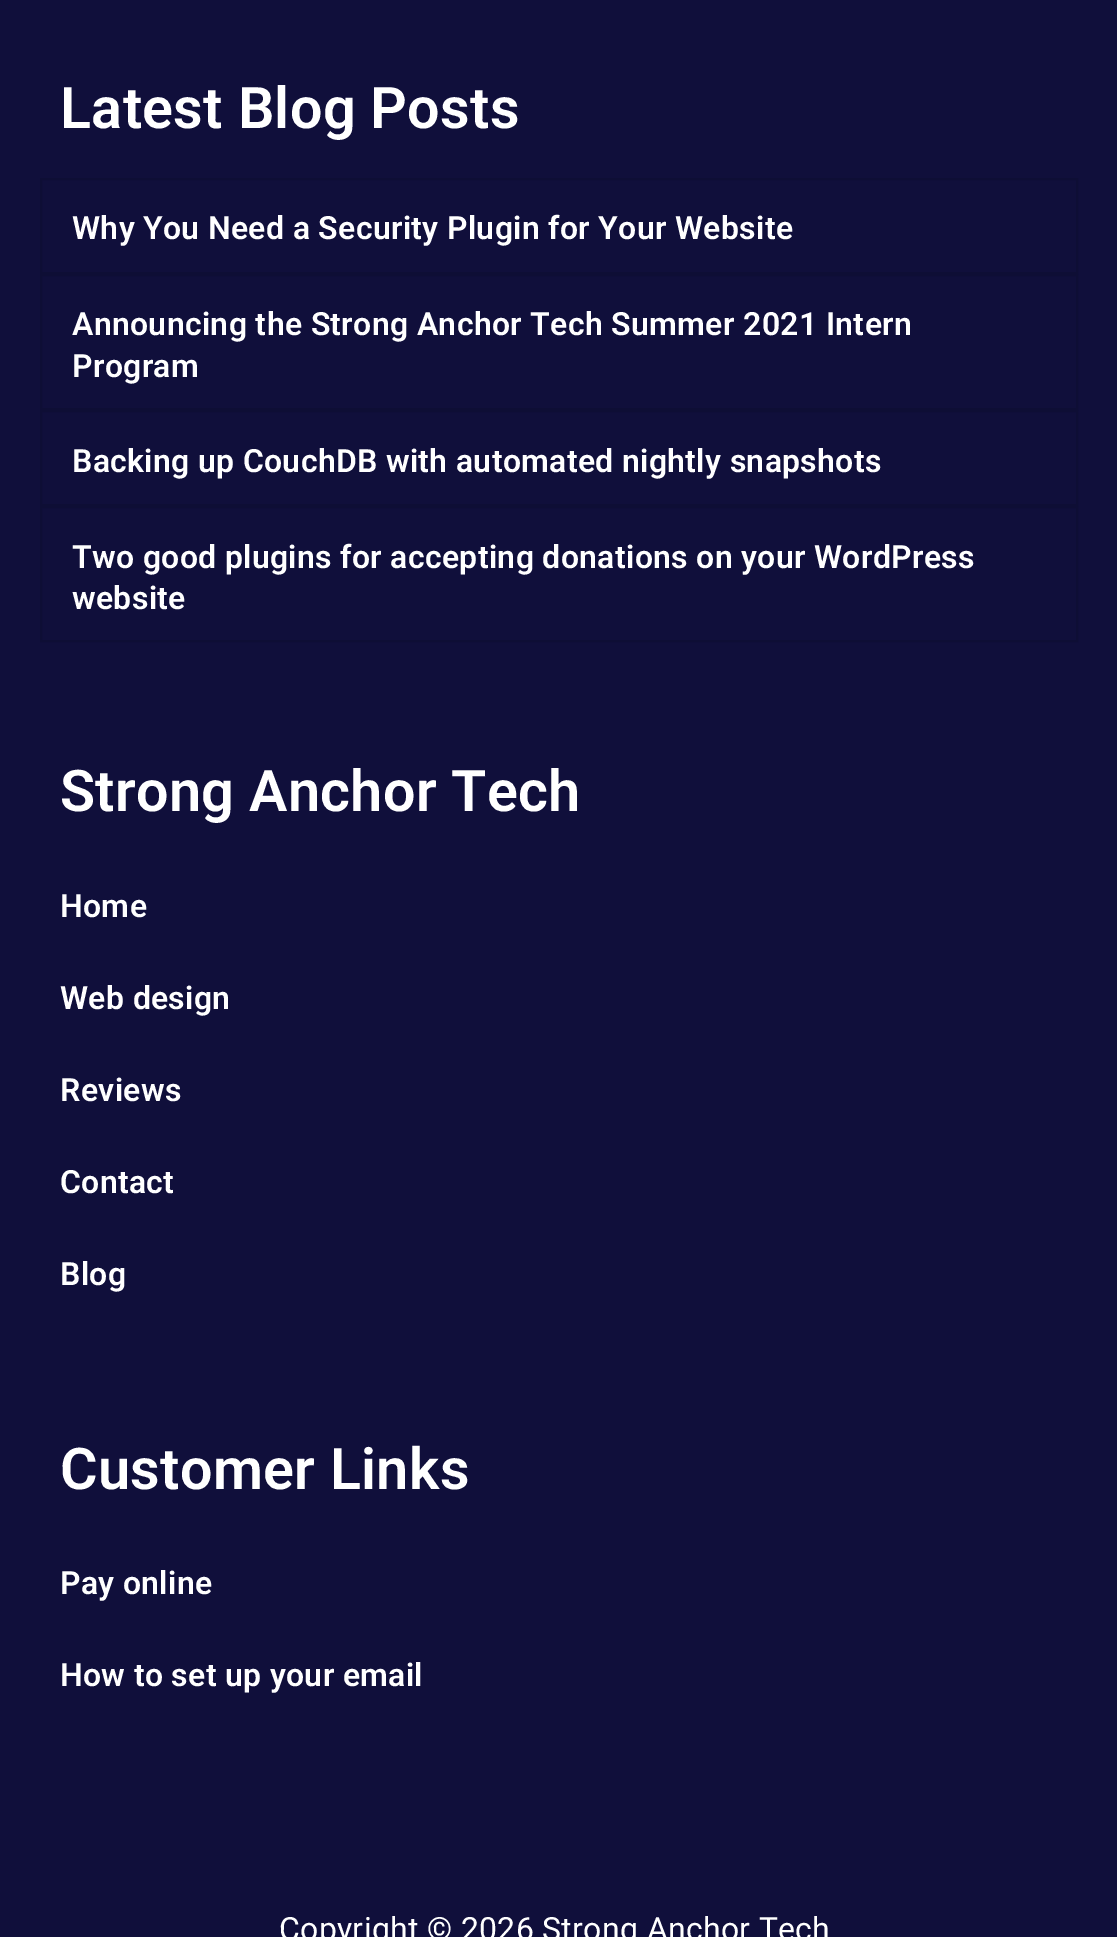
%!PS-Adobe-3.0
%%BoundingBox: 0 0 1117 1937
%%LanguageLevel: 3
%%Pages: 1
%%EndComments
%%BeginProlog
/setink { 3 { 255 div 3 1 roll } repeat setrgbcolor } def
/usefont { [ exch dup neg 0 0 3 -1 roll 0 0 ] selectfont } def
/fillbox { setink rectfill } def
%%EndProlog
%%BeginSetup
<< /PageSize [1117 1937] >> setpagedevice
%%EndSetup
%%Page: 1 1
0 1937 translate 1 -1 scale
4 setmiterlimit
0 0 1117 1937 16 15 59 fillbox
/Roboto-SemiBold 57.5 usefont
255 255 255 setink
60 128 moveto 0.32 0 (Latest Blog Posts) ashow
14 14 53 setink
2 setlinewidth
41 179 1036 94 rectstroke
/Roboto-SemiBold 32 usefont
255 255 255 setink
72 239 moveto 0.32 0 (Why You Need a Security Plugin for Your Website) ashow
14 14 53 setink
41 275 1036 134 rectstroke
255 255 255 setink
72 335 moveto 0.32 0 (Announcing the Strong Anchor Tech Summer 2021 Intern) ashow
72 377 moveto 0.32 0 (Program) ashow
14 14 53 setink
41 411 1036 94 rectstroke
255 255 255 setink
72 472 moveto 0.32 0 (Backing up CouchDB with automated nightly snapshots) ashow
14 14 53 setink
41 507 1036 134 rectstroke
255 255 255 setink
72 568 moveto 0.32 0 (Two good plugins for accepting donations on your WordPress) ashow
72 609 moveto 0.32 0 (website) ashow
/Roboto-SemiBold 57.5 usefont
60 811 moveto 0.32 0 (Strong Anchor Tech) ashow
/Roboto-SemiBold 32 usefont
60 917 moveto 0.32 0 (Home) ashow
60 1009 moveto 0.32 0 (Web design) ashow
60 1101 moveto 0.32 0 (Reviews) ashow
60 1193 moveto 0.32 0 (Contact) ashow
60 1285 moveto 0.32 0 (Blog) ashow
/Roboto-SemiBold 57.5 usefont
60 1489 moveto 0.32 0 (Customer Links) ashow
/Roboto-SemiBold 32 usefont
60 1594 moveto 0.32 0 (Pay online) ashow
60 1686 moveto 0.32 0 (How to set up your email) ashow
/Roboto-Regular 32 usefont
279 1940 moveto 0.32 0 (Copyright © 2026 Strong Anchor Tech) ashow
showpage
%%EOF
